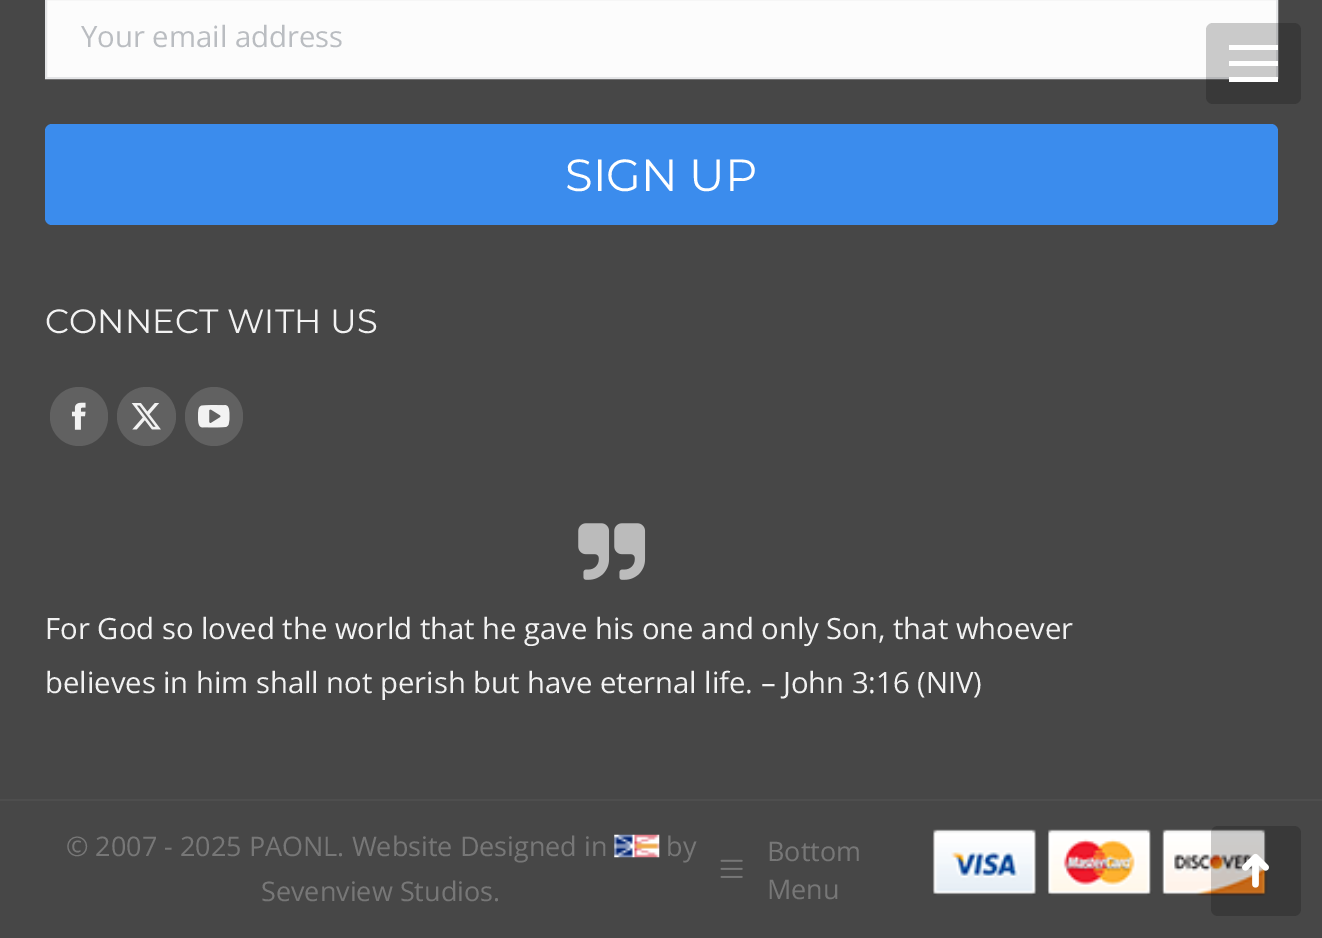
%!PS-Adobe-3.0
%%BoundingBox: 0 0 1322 938
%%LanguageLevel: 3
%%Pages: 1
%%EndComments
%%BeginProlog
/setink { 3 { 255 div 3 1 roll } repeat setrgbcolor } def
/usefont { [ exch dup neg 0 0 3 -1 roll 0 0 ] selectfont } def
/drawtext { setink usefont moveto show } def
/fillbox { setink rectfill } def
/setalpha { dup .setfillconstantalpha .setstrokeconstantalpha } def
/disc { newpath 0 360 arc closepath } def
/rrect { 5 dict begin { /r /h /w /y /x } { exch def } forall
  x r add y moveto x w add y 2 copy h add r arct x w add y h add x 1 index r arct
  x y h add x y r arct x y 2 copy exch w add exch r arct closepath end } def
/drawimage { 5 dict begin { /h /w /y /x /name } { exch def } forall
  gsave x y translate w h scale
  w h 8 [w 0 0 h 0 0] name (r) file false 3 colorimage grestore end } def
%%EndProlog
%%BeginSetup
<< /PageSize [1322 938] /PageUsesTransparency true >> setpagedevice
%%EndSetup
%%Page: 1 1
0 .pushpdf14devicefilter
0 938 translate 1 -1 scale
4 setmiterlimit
0 0 1322 938 71 71 71 fillbox
252 252 252 setink
46 -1 moveto 1277 -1 lineto 1277 78 lineto 46 78 lineto closepath gsave fill grestore
228 229 231 setink
2 setlinewidth
stroke
(Your email address) 81 47 /OpenSans-Regular 29.25 186 189 193 drawtext
59 140 237 setink
45 124 1233 101 7 rrect fill
(SIGN UP) 565 191 /Montserrat-Regular 45 255 255 255 drawtext
(CONNECT WITH US) 45 333 /Montserrat-Regular 33.75 242 242 242 drawtext
97 97 97 setink
50 387 58 59 29 rrect fill
(assets/img1.rgb) 71 402 15 28 drawimage
146.5 416.5 29.5 disc fill
(assets/img2.rgb) 131 403 30 27 drawimage
185 387 58 59 29 rrect fill
(assets/img3.rgb) 198 405 32 23 drawimage
(assets/img4.rgb) 578 523 68 57 drawimage
(For God so loved the world that he gave his one and only Son, that whoever) 45 639 /OpenSans-Regular 29.25 242 242 242 drawtext
(believes in him shall not perish but have eternal life. – John 3:16 \(NIV\)) 45 693 /OpenSans-Regular 29.25 242 242 242 drawtext
0 799 1322 2 78 78 78 fillbox
(© 2007 - 2025 PAONL. Website Designed in) 66 856 /OpenSans-Regular 27 119 119 119 drawtext
(assets/img5.rgb) 614 834 46 24 drawimage
(by) 666 856 /OpenSans-Regular 27 119 119 119 drawtext
(Sevenview Studios.) 261 901 /OpenSans-Regular 27 119 119 119 drawtext
(assets/img6.rgb) 720 859 23 19 drawimage
(Bottom) 767 861 /OpenSans-Regular 27 119 119 119 drawtext
(Menu) 767 899 /OpenSans-Regular 27 119 119 119 drawtext
(assets/img7.rgb) 932 829 336 67 drawimage
0.2 setalpha
0 0 0 setink
1206 23 95 81 7 rrect fill
1 setalpha
1229 45 49 5 255 255 255 fillbox
1229 61 49 5 255 255 255 fillbox
1229 77 49 5 255 255 255 fillbox
0.2 setalpha
0 0 0 setink
1211 826 90 90 7 rrect fill
1 setalpha
(assets/img8.rgb) 1242 853 27 35 drawimage
.poppdf14devicefilter showpage
%%EOF
